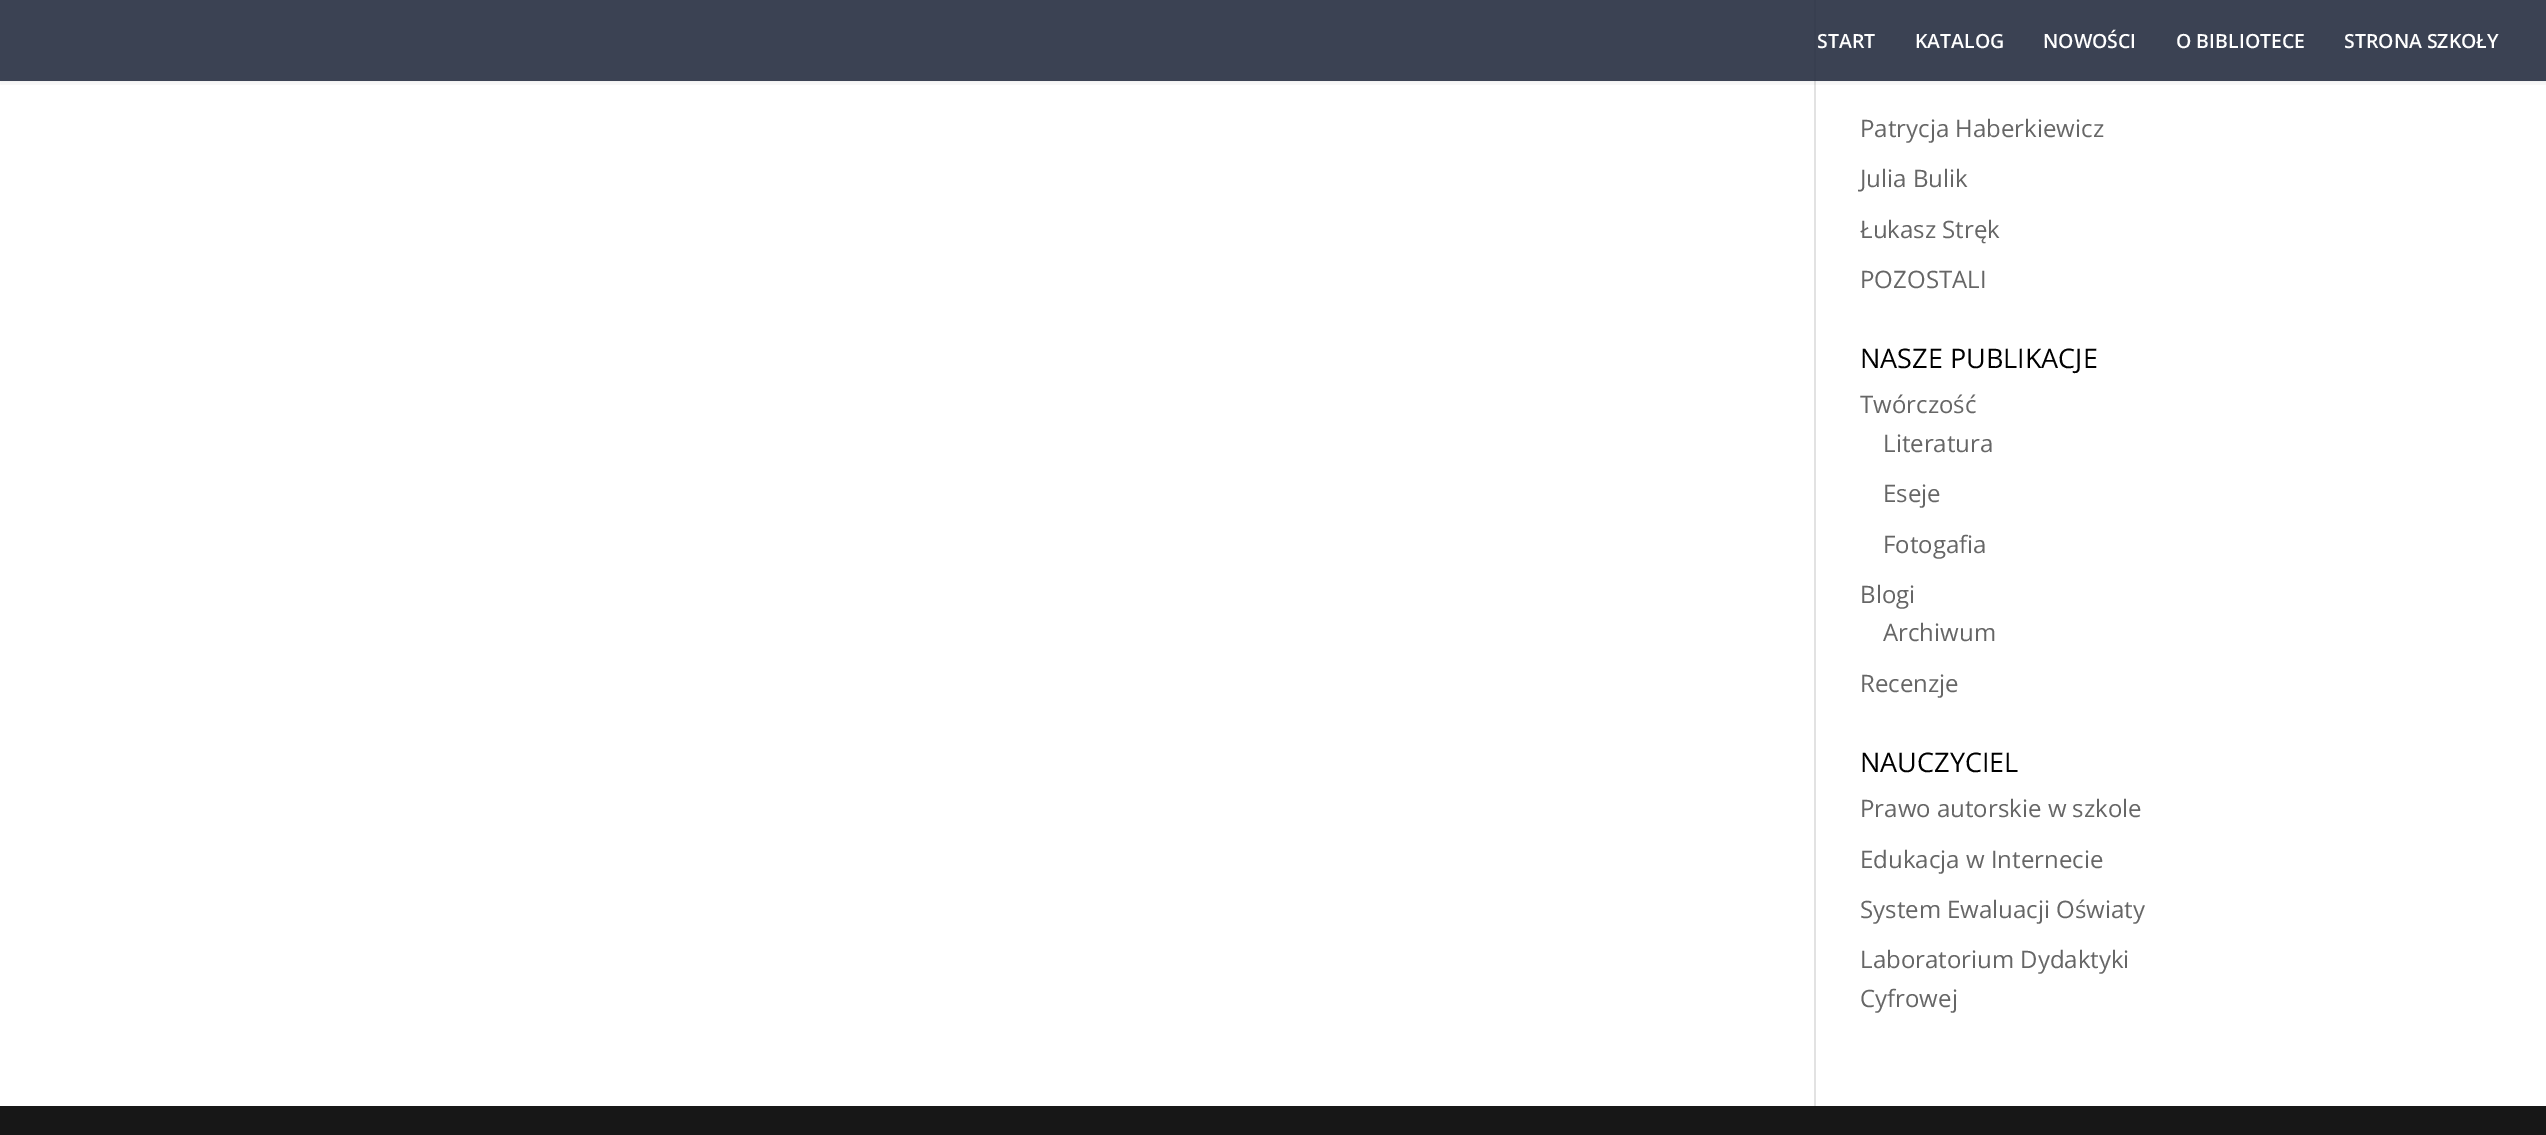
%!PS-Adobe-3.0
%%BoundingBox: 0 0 2546 1135
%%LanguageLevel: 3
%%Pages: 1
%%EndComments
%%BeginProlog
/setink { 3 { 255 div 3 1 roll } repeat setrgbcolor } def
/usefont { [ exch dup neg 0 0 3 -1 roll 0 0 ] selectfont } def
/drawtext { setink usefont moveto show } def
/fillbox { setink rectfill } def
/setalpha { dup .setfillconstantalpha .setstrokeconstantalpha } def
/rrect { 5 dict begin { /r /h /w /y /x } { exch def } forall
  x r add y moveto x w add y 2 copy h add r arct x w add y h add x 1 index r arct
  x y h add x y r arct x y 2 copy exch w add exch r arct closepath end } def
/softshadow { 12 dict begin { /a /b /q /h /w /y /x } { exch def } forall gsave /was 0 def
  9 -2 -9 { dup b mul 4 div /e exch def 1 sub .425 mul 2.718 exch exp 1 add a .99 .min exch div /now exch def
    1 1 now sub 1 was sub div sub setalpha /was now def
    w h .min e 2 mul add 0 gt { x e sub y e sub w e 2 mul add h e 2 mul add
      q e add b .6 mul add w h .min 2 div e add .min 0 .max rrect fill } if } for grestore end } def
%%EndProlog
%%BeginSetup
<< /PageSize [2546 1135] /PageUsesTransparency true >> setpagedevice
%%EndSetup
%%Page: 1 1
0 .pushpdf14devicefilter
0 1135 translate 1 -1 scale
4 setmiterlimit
0 0 2546 1135 255 255 255 fillbox
1814 0 2 1106 226 226 226 fillbox
gsave
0 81 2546 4 rectclip
0 0 0 setink
0 0 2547 81 0 5 0.1 softshadow
grestore
0.89 setalpha
0 0 2546 81 35 43 62 fillbox
1 setalpha
(START) 1817 48 /OpenSans-SemiBold 19.5 255 255 255 drawtext
(KATALOG) 1915 48 /OpenSans-SemiBold 19.5 255 255 255 drawtext
(NOWOŚCI) 2043 48 /OpenSans-SemiBold 19.5 255 255 255 drawtext
(O BIBLIOTECE) 2176 48 /OpenSans-SemiBold 19.5 255 255 255 drawtext
(STRONA SZKOŁY) 2344 48 /OpenSans-SemiBold 19.5 255 255 255 drawtext
(Patrycja Haberkiewicz) 1860 137 /OpenSans-Regular 24 102 102 102 drawtext
(Julia Bulik) 1860 187 /OpenSans-Regular 24 102 102 102 drawtext
(Łukasz Stręk) 1860 238 /OpenSans-Regular 24 102 102 102 drawtext
(POZOSTALI) 1860 288 /OpenSans-Regular 24 102 102 102 drawtext
(NASZE PUBLIKACJE) 1860 368 /OpenSans-Regular 27 0 0 0 drawtext
(Twórczość) 1860 413 /OpenSans-Regular 24 102 102 102 drawtext
(Literatura) 1883 452 /OpenSans-Regular 24 102 102 102 drawtext
(Eseje) 1883 502 /OpenSans-Regular 24 102 102 102 drawtext
(Fotogafia) 1883 553 /OpenSans-Regular 24 102 102 102 drawtext
(Blogi) 1860 603 /OpenSans-Regular 24 102 102 102 drawtext
(Archiwum) 1883 641 /OpenSans-Regular 24 102 102 102 drawtext
(Recenzje) 1860 692 /OpenSans-Regular 24 102 102 102 drawtext
(NAUCZYCIEL) 1860 772 /OpenSans-Regular 27 0 0 0 drawtext
(Prawo autorskie w szkole) 1860 817 /OpenSans-Regular 24 102 102 102 drawtext
(Edukacja w Internecie) 1860 868 /OpenSans-Regular 24 102 102 102 drawtext
(System Ewaluacji Oświaty) 1860 918 /OpenSans-Regular 24 102 102 102 drawtext
(Laboratorium Dydaktyki) 1860 968 /OpenSans-Regular 24 102 102 102 drawtext
(Cyfrowej) 1860 1007 /OpenSans-Regular 24 102 102 102 drawtext
0 1106 2546 29 23 23 23 fillbox
.poppdf14devicefilter showpage
%%EOF
